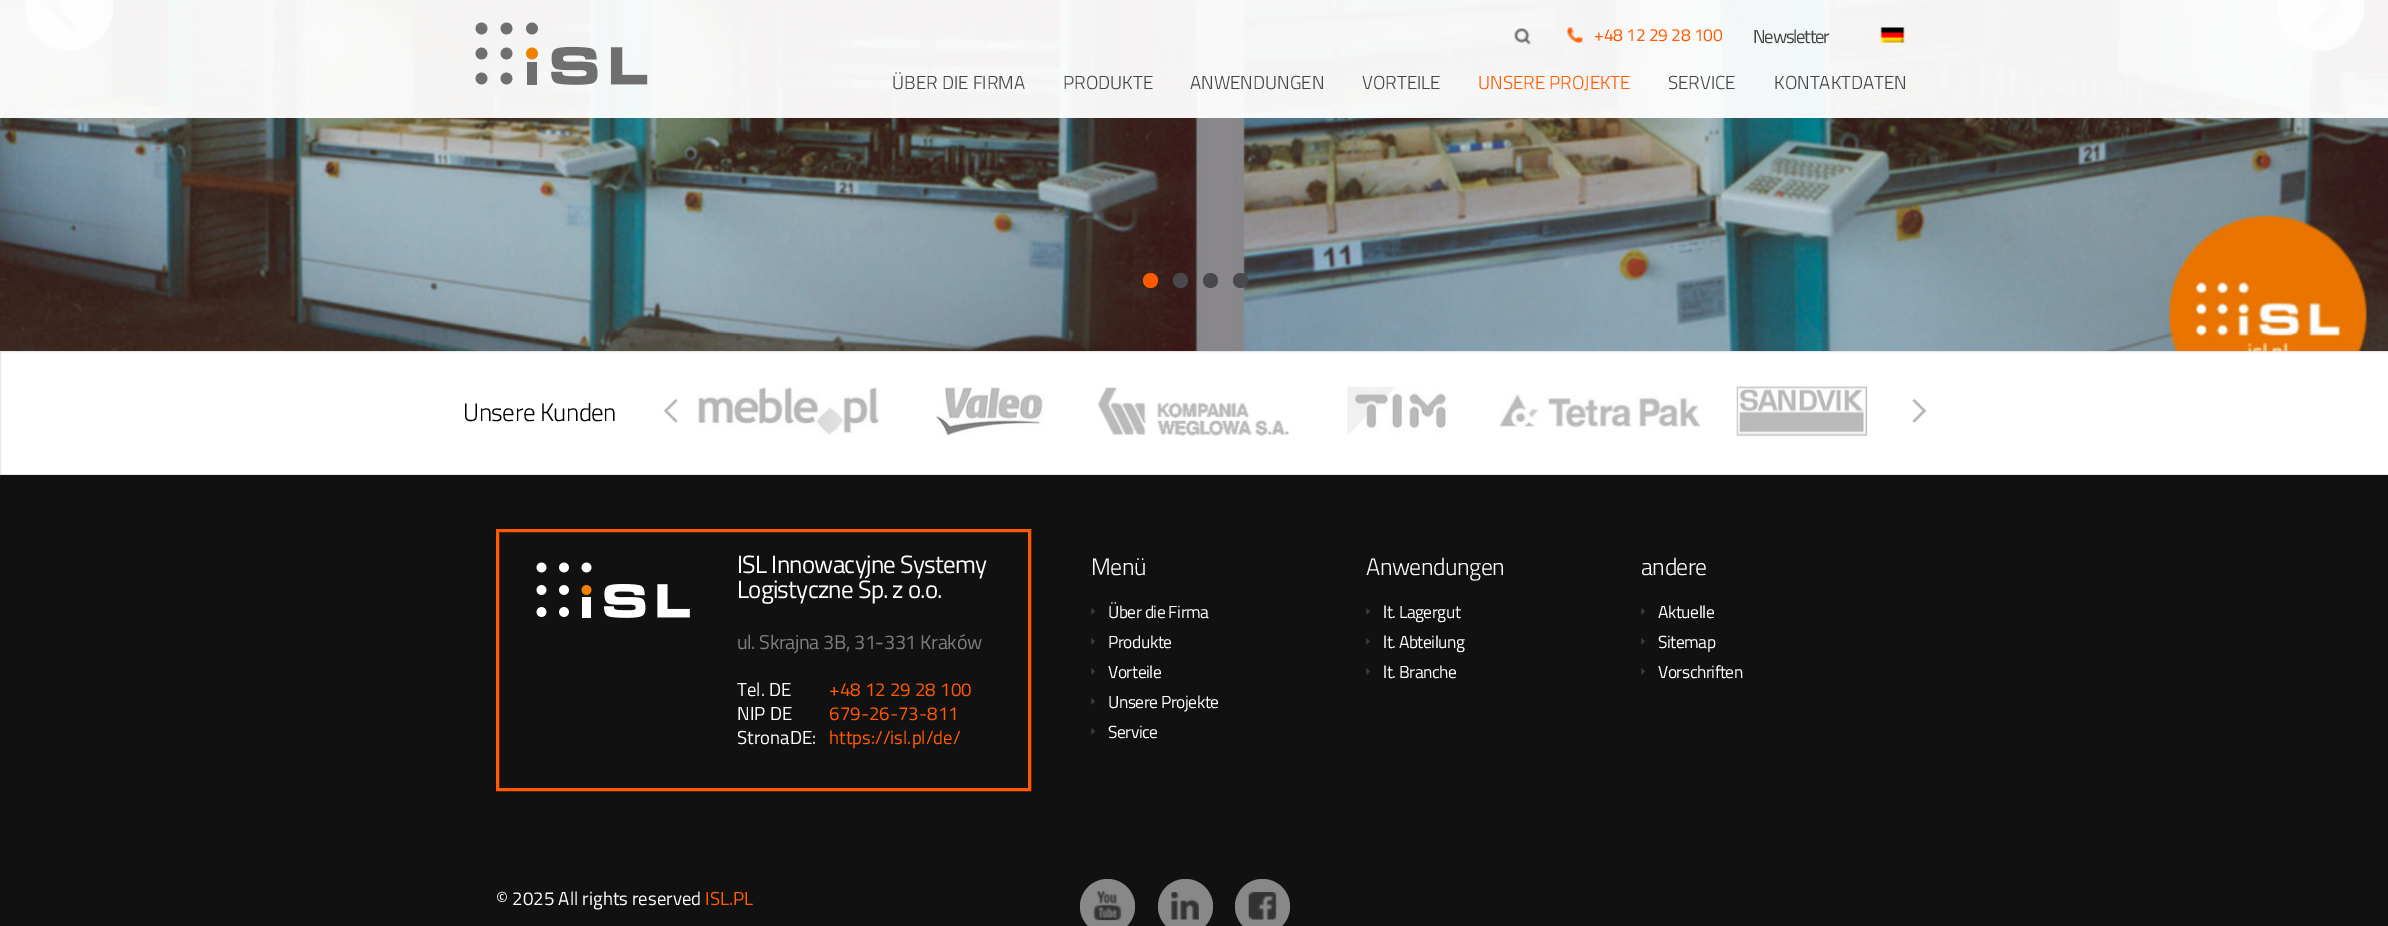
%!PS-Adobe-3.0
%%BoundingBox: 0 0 2388 926
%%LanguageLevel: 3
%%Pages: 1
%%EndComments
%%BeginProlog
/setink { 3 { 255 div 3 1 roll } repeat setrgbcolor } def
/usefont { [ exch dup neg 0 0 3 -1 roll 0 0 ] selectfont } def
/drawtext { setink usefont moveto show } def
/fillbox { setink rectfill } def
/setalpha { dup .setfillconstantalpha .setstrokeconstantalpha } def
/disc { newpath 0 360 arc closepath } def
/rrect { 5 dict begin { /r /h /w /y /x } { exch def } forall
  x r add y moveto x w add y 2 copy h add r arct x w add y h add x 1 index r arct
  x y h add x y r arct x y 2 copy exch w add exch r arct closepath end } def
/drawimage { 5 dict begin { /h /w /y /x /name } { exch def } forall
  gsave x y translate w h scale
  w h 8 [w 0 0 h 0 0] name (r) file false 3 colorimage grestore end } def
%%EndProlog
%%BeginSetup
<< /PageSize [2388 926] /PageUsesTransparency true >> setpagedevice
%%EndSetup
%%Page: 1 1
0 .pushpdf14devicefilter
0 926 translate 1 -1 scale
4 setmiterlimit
0 0 2388 926 255 255 255 fillbox
(assets/img3.rgb) 0 0 2388 351 drawimage
0.8 setalpha
25 -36 88 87 43.5 rrect fill
160 158 156 setink
25.5 -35.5 87 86 43 rrect stroke
1 setalpha
(assets/img1.rgb) 46 0 33 34 drawimage
0.8 setalpha
255 255 255 setink
2276 -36 88 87 43.5 rrect fill
160 158 156 setink
2276.5 -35.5 87 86 43 rrect stroke
1 setalpha
(assets/img2.rgb) 2308 0 34 34 drawimage
255 90 0 setink
1150.5 280.5 7.5 disc fill
73 72 76 setink
1180.5 280.5 7.5 disc fill
1210.5 280.5 7.5 disc fill
1240.5 280.5 7.5 disc fill
0.95 setalpha
0 0 2388 118 255 255 255 fillbox
1 setalpha
(assets/img4.rgb) 475 22 173 63 drawimage
(assets/img5.rgb) 1514 28 17 17 drawimage
(assets/img6.rgb) 1567 27 16 16 drawimage
/TitilliumWeb-Regular 17.5 usefont
255 90 0 setink
1594 41 moveto -0.3 0 (+48 12 29 28 100) ashow
/TitilliumWeb-Regular 18.75 usefont
68 68 68 setink
1753 43 moveto -1.25 0 (Newsletter) ashow
(assets/img7.rgb) 1880 27 25 16 drawimage
(ÜBER DIE FIRMA) 892 89 /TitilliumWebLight-Light 18.75 68 68 68 drawtext
(PRODUKTE) 1063 89 /TitilliumWebLight-Light 18.75 68 68 68 drawtext
(ANWENDUNGEN) 1190 89 /TitilliumWebLight-Light 18.75 68 68 68 drawtext
(VORTEILE) 1362 89 /TitilliumWebLight-Light 18.75 68 68 68 drawtext
(UNSERE PROJEKTE) 1478 89 /TitilliumWebLight-Light 18.75 255 90 0 drawtext
(SERVICE) 1668 89 /TitilliumWebLight-Light 18.75 68 68 68 drawtext
(KONTAKTDATEN) 1774 89 /TitilliumWebLight-Light 18.75 68 68 68 drawtext
233 232 232 setink
0.5 351.5 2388 123 rectstroke
/TitilliumWebLight-Light 25 usefont
0 0 0 setink
463 421 moveto -0.5 0 (Unsere Kunden) ashow
(assets/img8.rgb) 663 398 15 25 drawimage
(assets/img9.rgb) 697 387 182 48 drawimage
(assets/img10.rgb) 936 387 109 49 drawimage
(assets/img11.rgb) 1098 387 191 49 drawimage
(assets/img12.rgb) 1347 386 101 49 drawimage
(assets/img13.rgb) 1499 394 202 34 drawimage
(assets/img14.rgb) 1736 386 132 50 drawimage
(assets/img15.rgb) 1912 398 15 25 drawimage
0 475 2388 451 17 17 17 fillbox
255 90 0 setink
3 setlinewidth
497.5 530.5 532 259 rectstroke
(assets/img16.rgb) 536 562 154 56 drawimage
/TitilliumWeb-Regular 25 usefont
255 255 255 setink
737 573 moveto -0.75 0 (ISL Innowacyjne Systemy) ashow
737 598 moveto -0.75 0 (Logistyczne Sp. z o.o.) ashow
/TitilliumWeb-Regular 20 usefont
125 125 125 setink
737 649 moveto -0.4 0 (ul. Skrajna 3B, 31-331 Kraków) ashow
(Tel. DE) 737 696 /TitilliumWeb-Regular 18.75 255 255 255 drawtext
(+48 12 29 28 100) 829 696 /TitilliumWeb-Regular 18.75 255 90 0 drawtext
(NIP DE) 737 720 /TitilliumWeb-Regular 18.75 255 255 255 drawtext
(679-26-73-811) 829 720 /TitilliumWeb-Regular 18.75 255 90 0 drawtext
(StronaDE:) 737 744 /TitilliumWeb-Regular 18.75 255 255 255 drawtext
(https://isl.pl/de/) 829 744 /TitilliumWeb-Regular 18.75 255 90 0 drawtext
/TitilliumWebLight-Light 23.75 usefont
255 255 255 setink
1091 575 moveto -0.5 0 (Menü) ashow
(assets/img17.rgb) 1091 608 4 7 drawimage
/TitilliumWeb-Regular 17.5 usefont
1108 618 moveto -0.5 0 (Über die Firma) ashow
(assets/img17.rgb) 1091 638 4 7 drawimage
1108 648 moveto -0.5 0 (Produkte) ashow
(assets/img17.rgb) 1091 668 4 7 drawimage
1108 678 moveto -0.5 0 (Vorteile) ashow
(assets/img17.rgb) 1091 698 4 7 drawimage
1108 708 moveto -0.5 0 (Unsere Projekte) ashow
(assets/img17.rgb) 1091 728 4 7 drawimage
1108 738 moveto -0.5 0 (Service) ashow
/TitilliumWebLight-Light 23.75 usefont
1366 575 moveto -0.5 0 (Anwendungen) ashow
(assets/img17.rgb) 1366 608 4 7 drawimage
/TitilliumWeb-Regular 17.5 usefont
1383 618 moveto -0.5 0 (lt. Lagergut) ashow
(assets/img17.rgb) 1366 638 4 7 drawimage
1383 648 moveto -0.5 0 (lt. Abteilung) ashow
(assets/img17.rgb) 1366 668 4 7 drawimage
1383 678 moveto -0.5 0 (lt. Branche) ashow
/TitilliumWebLight-Light 23.75 usefont
1641 575 moveto -0.5 0 (andere) ashow
(assets/img17.rgb) 1641 608 4 7 drawimage
/TitilliumWeb-Regular 17.5 usefont
1658 618 moveto -0.5 0 (Aktuelle) ashow
(assets/img17.rgb) 1641 638 4 7 drawimage
1658 648 moveto -0.5 0 (Sitemap) ashow
(assets/img17.rgb) 1641 668 4 7 drawimage
1658 678 moveto -0.5 0 (Vorschriften) ashow
(© 2025 All rights reserved) 496 905 /TitilliumWeb-Regular 18.75 255 255 255 drawtext
(ISL.PL) 705 905 /TitilliumWeb-Regular 18.75 255 90 0 drawtext
136 136 136 setink
1107.5 906.5 27.5 disc fill
(assets/img18.rgb) 1093 891 29 30 drawimage
1185.5 906.5 27.5 disc fill
(assets/img19.rgb) 1171 892 28 28 drawimage
1262.5 906.5 27.5 disc fill
(assets/img20.rgb) 1248 892 29 28 drawimage
.poppdf14devicefilter showpage
%%EOF
